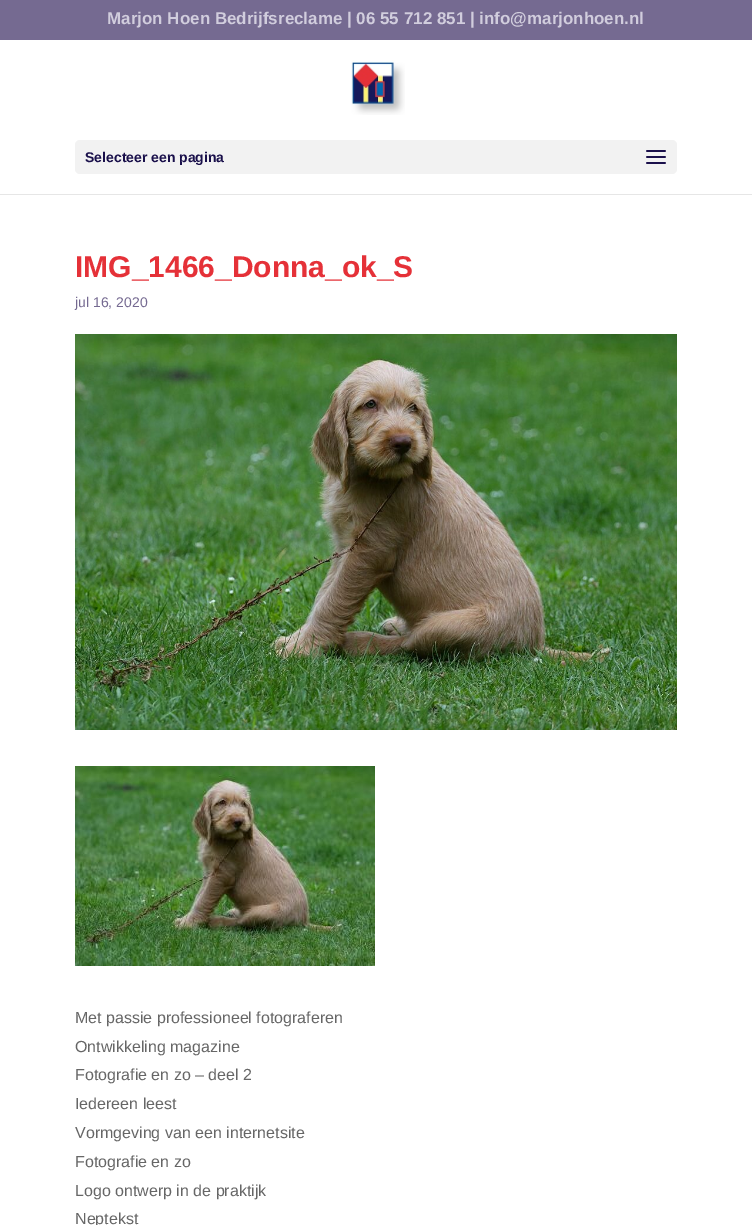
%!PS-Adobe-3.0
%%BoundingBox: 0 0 752 1225
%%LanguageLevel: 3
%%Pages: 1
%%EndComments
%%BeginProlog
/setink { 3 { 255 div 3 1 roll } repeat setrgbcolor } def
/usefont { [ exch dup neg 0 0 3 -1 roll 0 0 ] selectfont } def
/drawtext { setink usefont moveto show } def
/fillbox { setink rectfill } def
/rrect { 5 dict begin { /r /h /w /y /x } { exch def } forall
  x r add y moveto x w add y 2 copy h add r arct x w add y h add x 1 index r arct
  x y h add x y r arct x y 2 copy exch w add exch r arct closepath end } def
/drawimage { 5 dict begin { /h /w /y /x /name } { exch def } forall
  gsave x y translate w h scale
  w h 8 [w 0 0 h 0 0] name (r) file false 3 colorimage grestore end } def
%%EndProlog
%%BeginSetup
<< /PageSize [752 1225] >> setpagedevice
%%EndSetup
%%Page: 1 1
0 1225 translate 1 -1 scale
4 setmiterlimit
0 0 752 1225 255 255 255 fillbox
0 0 752 40 117 106 145 fillbox
(Marjon Hoen Bedrijfsreclame | 06 55 712 851 | info@marjonhoen.nl) 107 24 /LiberationSans-Bold 17 209 205 221 drawtext
0 194 752 1 230 230 230 fillbox
(assets/img1.rgb) 351 60 54 55 drawimage
242 242 242 setink
75 140 602 34 5 rrect fill
(Selecteer een pagina) 85 162 /LiberationSans-Bold 14 26 16 75 drawtext
(assets/img2.rgb) 646 150 20 14 drawimage
(IMG_1466_Donna_ok_S) 75 277 /LiberationSans-Bold 30 229 49 56 drawtext
(jul 16, 2020) 75 307 /LiberationSans-Regular 14 117 106 145 drawtext
(assets/img3.rgb) 75 334 602 396 drawimage
(assets/img4.rgb) 75 766 300 200 drawimage
(Met passie professioneel fotograferen) 75 1023 /LiberationSans-Regular 16 102 102 102 drawtext
(Ontwikkeling magazine) 75 1052 /LiberationSans-Regular 16 102 102 102 drawtext
(Fotografie en zo – deel 2) 75 1080 /LiberationSans-Regular 16 102 102 102 drawtext
(Iedereen leest) 75 1109 /LiberationSans-Regular 16 102 102 102 drawtext
(Vormgeving van een internetsite) 75 1138 /LiberationSans-Regular 16 102 102 102 drawtext
(Fotografie en zo) 75 1167 /LiberationSans-Regular 16 102 102 102 drawtext
(Logo ontwerp in de praktijk) 75 1196 /LiberationSans-Regular 16 102 102 102 drawtext
(Neptekst) 75 1224 /LiberationSans-Regular 16 102 102 102 drawtext
showpage
%%EOF
